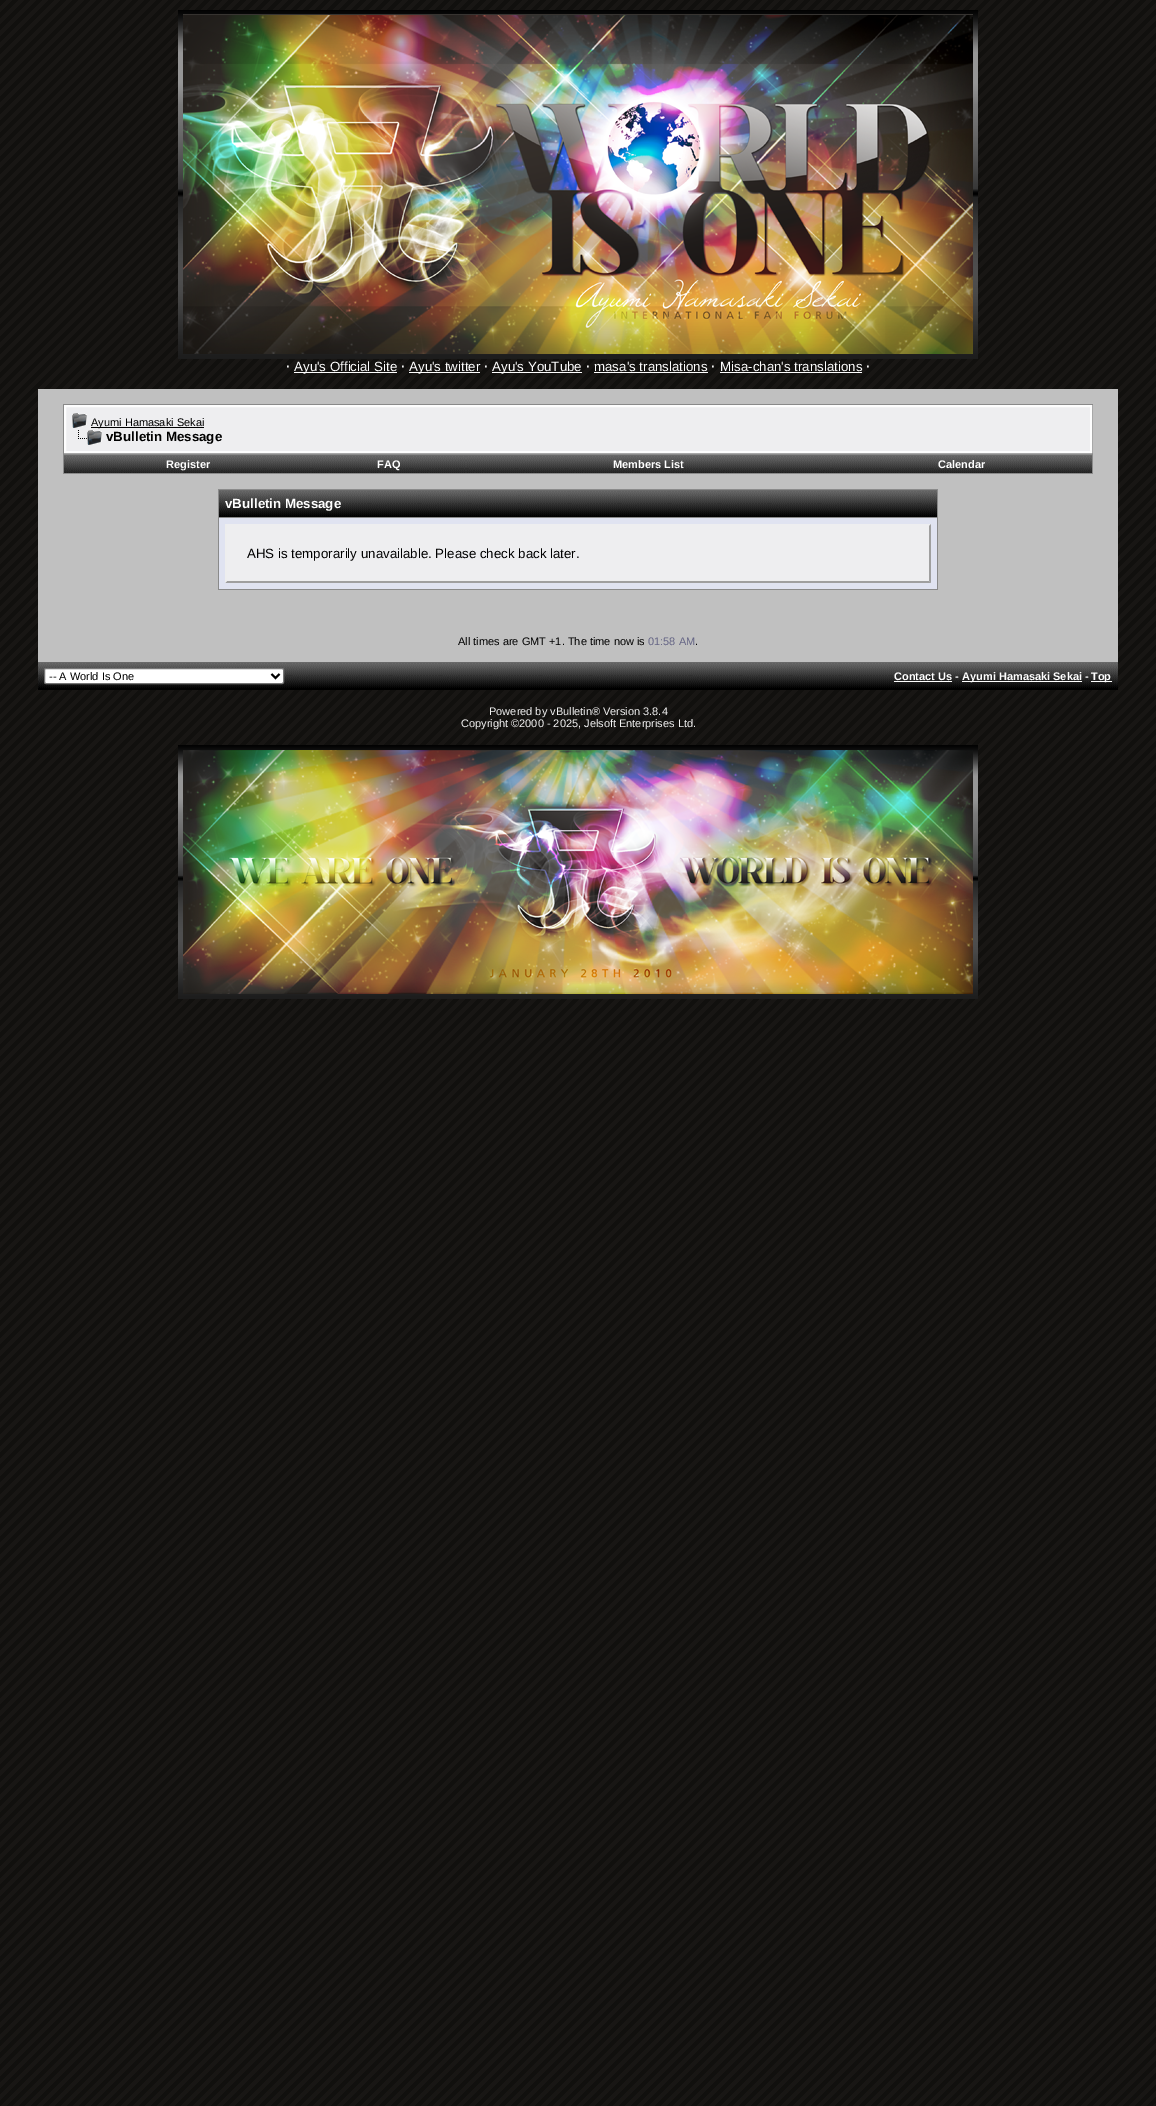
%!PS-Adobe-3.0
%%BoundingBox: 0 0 1156 2106
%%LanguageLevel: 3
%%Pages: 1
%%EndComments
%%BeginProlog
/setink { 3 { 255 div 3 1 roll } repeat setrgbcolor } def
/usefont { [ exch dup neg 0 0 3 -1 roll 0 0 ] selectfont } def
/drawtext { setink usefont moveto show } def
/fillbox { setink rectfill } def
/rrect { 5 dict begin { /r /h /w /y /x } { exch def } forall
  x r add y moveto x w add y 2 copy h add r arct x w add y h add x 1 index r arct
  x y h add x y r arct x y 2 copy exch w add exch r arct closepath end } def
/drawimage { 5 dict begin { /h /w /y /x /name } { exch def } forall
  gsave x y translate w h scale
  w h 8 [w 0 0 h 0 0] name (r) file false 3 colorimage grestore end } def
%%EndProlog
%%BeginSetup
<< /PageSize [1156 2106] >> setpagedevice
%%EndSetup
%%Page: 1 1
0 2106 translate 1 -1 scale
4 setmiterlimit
0 0 1156 2106 255 255 255 fillbox
(assets/img1.rgb) 0 0 1156 2106 drawimage
(assets/img2.rgb) 178 10 800 349 drawimage
(·) 286 371 /LiberationSans-Bold 13.3 242 242 242 drawtext
294 372 103 1 255 255 255 fillbox
(Ayu's Official Site) 294 371 /LiberationSans-Regular 13.3 255 255 255 drawtext
(·) 401 371 /LiberationSans-Bold 13.3 242 242 242 drawtext
409 372 71 1 255 255 255 fillbox
(Ayu's twitter) 409 371 /LiberationSans-Regular 13.3 255 255 255 drawtext
(·) 484 371 /LiberationSans-Bold 13.3 242 242 242 drawtext
492 372 90 1 255 255 255 fillbox
(Ayu's YouTube) 492 371 /LiberationSans-Regular 13.3 255 255 255 drawtext
(·) 586 371 /LiberationSans-Bold 13.3 242 242 242 drawtext
(masa's translations) 594 371 /LiberationSans-Regular 13.3 255 255 255 drawtext
594 372 114 1 255 255 255 fillbox
(·) 711 371 /LiberationSans-Bold 13.3 242 242 242 drawtext
(Misa-chan's translations) 720 371 /LiberationSans-Regular 13.3 255 255 255 drawtext
720 372 142 1 255 255 255 fillbox
(·) 866 371 /LiberationSans-Bold 13.3 242 242 242 drawtext
38 389 1080 273 192 192 192 fillbox
63 404 1030 70 138 138 138 fillbox
238 238 240 setink
65 406 moveto 1091 406 lineto 1091 452 lineto 65 452 lineto closepath gsave fill grestore
254 254 254 setink
2 setlinewidth
stroke
(assets/img3.rgb) 72 413 15 15 drawimage
91 427 113 1 0 0 0 fillbox
(Ayumi Hamasaki Sekai) 91 426 /LiberationSans-Regular 11 0 0 0 drawtext
(assets/img4.rgb) 78 430 24 15 drawimage
(vBulletin Message) 106 441 /LiberationSans-Bold 13.3 0 0 0 drawtext
(assets/img5.rgb) 64 455 247 18 drawimage
(Register) 166 468 /LiberationSans-Bold 11 255 255 255 drawtext
(assets/img6.rgb) 311 455 155 18 drawimage
(FAQ) 377 468 /LiberationSans-Bold 11 255 255 255 drawtext
(assets/img7.rgb) 466 455 365 18 drawimage
(Members List) 613 468 /LiberationSans-Bold 11 255 255 255 drawtext
(assets/img8.rgb) 831 455 261 18 drawimage
(Calendar) 938 468 /LiberationSans-Bold 11 255 255 255 drawtext
218 489 720 101 138 138 138 fillbox
219 516 718 1 1 1 1 fillbox
(assets/img9.rgb) 219 490 718 26 drawimage
(vBulletin Message) 225 508 /LiberationSans-Bold 13.3 255 255 255 drawtext
219 518 718 71 224 227 241 fillbox
225 524 706 59 238 238 240 fillbox
159 159 159 setink
931 524 moveto 931 583 lineto 929 581 lineto 929 526 lineto closepath fill
931 583 moveto 225 583 lineto 227 581 lineto 929 581 lineto closepath fill
238 238 238 setink
225 583 moveto 225 524 lineto 227 526 lineto 227 581 lineto closepath fill
(AHS is temporarily unavailable. Please check back later.) 247 558 /LiberationSans-Regular 13.3 0 0 0 drawtext
(All times are GMT +1. The time now is) 458 645 /LiberationSans-Regular 11 0 0 0 drawtext
(01:58 AM) 648 645 /LiberationSans-Regular 11 102 102 134 drawtext
(.) 695 645 /LiberationSans-Regular 11 0 0 0 drawtext
38 688 1080 2 0 0 0 fillbox
(assets/img10.rgb) 38 662 252 26 drawimage
255 255 255 setink
44.5 668.5 239 15 1.5 rrect gsave fill grestore
118 118 118 setink
1 setlinewidth
stroke
0 0 0 setink
2 setlinewidth
271.5 674 moveto 275.5 678 lineto 279.5 674 lineto stroke
(-- A World Is One) 49 680 /LiberationSans-Regular 11 0 0 0 drawtext
(assets/img11.rgb) 290 662 828 26 drawimage
(Contact Us -) 894 680 /LiberationSans-Bold 11 255 255 255 drawtext
894 681 58 1 255 255 255 fillbox
962 681 120 1 255 255 255 fillbox
(Ayumi Hamasaki Sekai -) 962 680 /LiberationSans-Bold 11 255 255 255 drawtext
1091 681 21 1 255 255 255 fillbox
(Top) 1091 680 /LiberationSans-Bold 11 255 255 255 drawtext
(Powered by vBulletin® Version 3.8.4) 489 715 /LiberationSans-Regular 11 242 242 242 drawtext
(Copyright ©2000 - 2025, Jelsoft Enterprises Ltd.) 461 727 /LiberationSans-Regular 11 242 242 242 drawtext
(assets/img12.rgb) 178 745 800 254 drawimage
showpage
%%EOF
